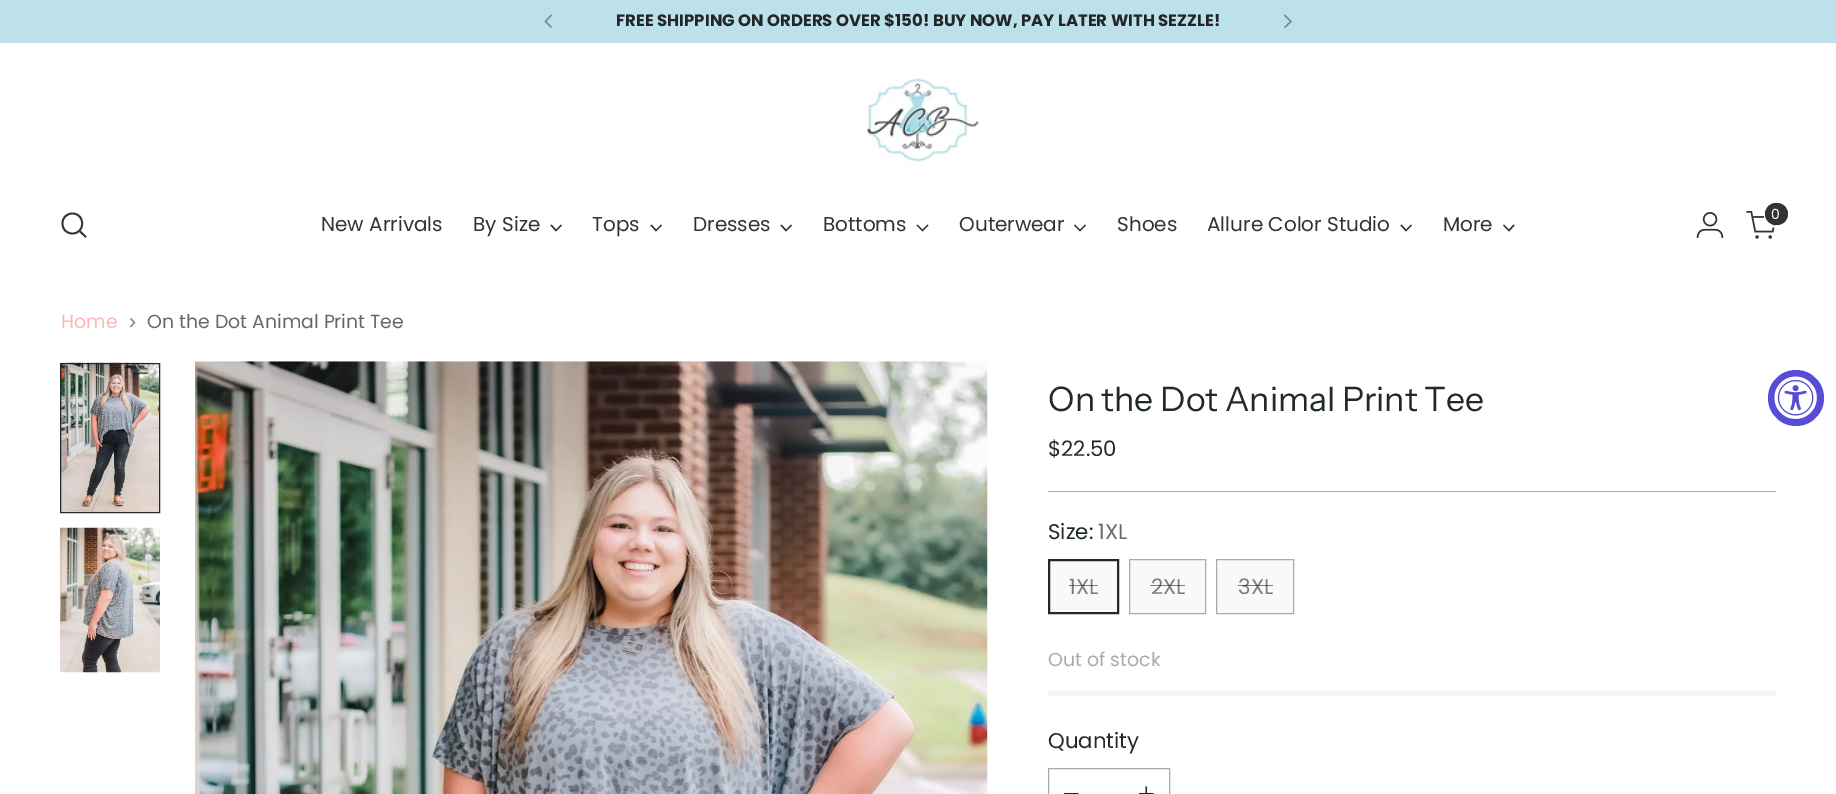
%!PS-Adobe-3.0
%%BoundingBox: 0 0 1836 794
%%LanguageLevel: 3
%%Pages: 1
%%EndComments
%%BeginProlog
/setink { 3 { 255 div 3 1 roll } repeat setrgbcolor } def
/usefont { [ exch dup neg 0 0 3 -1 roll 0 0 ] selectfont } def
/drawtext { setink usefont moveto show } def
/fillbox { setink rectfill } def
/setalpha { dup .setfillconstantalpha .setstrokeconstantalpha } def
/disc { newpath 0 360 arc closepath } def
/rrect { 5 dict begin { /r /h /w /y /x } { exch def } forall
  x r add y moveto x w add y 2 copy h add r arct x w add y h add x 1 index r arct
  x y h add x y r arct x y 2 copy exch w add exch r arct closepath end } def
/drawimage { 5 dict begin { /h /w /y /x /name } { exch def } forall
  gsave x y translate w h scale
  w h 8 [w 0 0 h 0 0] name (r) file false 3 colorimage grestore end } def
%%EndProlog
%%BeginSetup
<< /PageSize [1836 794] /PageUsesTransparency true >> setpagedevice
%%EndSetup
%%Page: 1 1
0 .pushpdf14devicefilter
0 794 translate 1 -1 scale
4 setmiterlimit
0 0 1836 794 255 255 255 fillbox
0 0 1836 43 188 225 234 fillbox
(FREE SHIPPING ON ORDERS OVER $150! BUY NOW, PAY LATER WITH SEZZLE!) 616 26 /Poppins-Bold 16.5 36 37 38 drawtext
112 131 136 setink
1.2 setlinewidth
551.5 15 moveto 545.5 21.5 lineto 551.5 27.5 lineto stroke
1284.5 27.5 moveto 1291 21.5 lineto 1284.5 15 lineto stroke
(assets/img1.rgb) 867 77 113 90 drawimage
51 51 51 setink
1.8 setlinewidth
1 setlinecap
72.5 233.5 moveto 85.5 233.5 85.5 213.5 72.5 213.5 curveto 59 213.5 59 233.5 72.5 233.5 curveto closepath stroke
0 setlinecap
79.5 231 moveto 86 237 lineto stroke
(New Arrivals) 321 231 /Poppins-Regular 20 51 51 51 drawtext
(By Size) 473 231 /Poppins-Regular 20 51 51 51 drawtext
1.4 setlinewidth
551 225 moveto 556 230.5 lineto 561.5 225 lineto stroke
(Tops) 592 231 /Poppins-Regular 20 51 51 51 drawtext
651 225 moveto 656 230.5 lineto 661.5 225 lineto stroke
(Dresses) 693 231 /Poppins-Regular 20 51 51 51 drawtext
781 225 moveto 786 230.5 lineto 791.5 225 lineto stroke
(Bottoms) 823 231 /Poppins-Regular 20 51 51 51 drawtext
917 225 moveto 922.5 230.5 lineto 928 225 lineto stroke
(Outerwear) 959 231 /Poppins-Regular 20 51 51 51 drawtext
1074.5 225 moveto 1080 230.5 lineto 1085.5 225 lineto stroke
(Shoes) 1117 231 /Poppins-Regular 20 51 51 51 drawtext
(Allure Color Studio) 1207 231 /Poppins-Regular 20 51 51 51 drawtext
1401 225 moveto 1406 230.5 lineto 1411.5 225 lineto stroke
(More) 1443 231 /Poppins-Regular 20 51 51 51 drawtext
1503.5 225 moveto 1509 230.5 lineto 1514 225 lineto stroke
(assets/img2.rgb) 1696 212 28 26 drawimage
(assets/img3.rgb) 1746 211 30 28 drawimage
255 255 255 setink
2 setlinewidth
1765 202 24 25 12 rrect stroke
51 51 51 setink
1765 203 23 22 11 rrect fill
(0) 1771 219 /Poppins-Regular 14 255 255 255 drawtext
(Home) 61 328 /Poppins-Regular 18.9 255 182 185 drawtext
122 127 129 setink
1.1 setlinewidth
130.5 327 moveto 134.5 322.5 lineto 130.5 318.5 lineto stroke
(On the Dot Animal Print Tee) 147 328 /Poppins-Regular 18.9 100 105 108 drawtext
(assets/img4.rgb) 60 362 100 150 drawimage
34 41 45 setink
1 setlinewidth
60.5 363.5 99 149 rectstroke
(assets/img5.rgb) 60 527 100 146 drawimage
(assets/img6.rgb) 195 361 793 433 drawimage
1048 491 728 1 170 170 170 fillbox
(On the Dot Animal Print Tee) 1048 411 /InstrumentSans-Regular 33.75 34 41 45 drawtext
($22.50) 1048 456 /Poppins-Regular 21.25 34 41 45 drawtext
(Size:) 1048 539 /Poppins-Regular 21.25 34 41 45 drawtext
(1XL) 1098 539 /Poppins-Regular 21.25 100 105 108 drawtext
249 249 249 setink
1049.5 560.5 moveto 1117.5 560.5 lineto 1117.5 612.5 lineto 1049.5 612.5 lineto closepath gsave fill grestore
34 41 45 setink
stroke
1048.5 559.5 70 54 rectstroke
(1XL) 1069 594 /Poppins-Regular 21.25 120 124 127 drawtext
0.6 setalpha
1069 585 29 1 34 41 45 fillbox
1 setalpha
249 249 249 setink
1129.5 559.5 moveto 1205.5 559.5 lineto 1205.5 613.5 lineto 1129.5 613.5 lineto closepath gsave fill grestore
170 170 170 setink
stroke
(2XL) 1151 594 /Poppins-Regular 21.25 120 124 127 drawtext
0.6 setalpha
1150 585 35 1 34 41 45 fillbox
1 setalpha
249 249 249 setink
1216.5 559.5 moveto 1293.5 559.5 lineto 1293.5 613.5 lineto 1216.5 613.5 lineto closepath gsave fill grestore
170 170 170 setink
stroke
(3XL) 1238 594 /Poppins-Regular 21.25 120 124 127 drawtext
0.6 setalpha
1238 585 35 1 34 41 45 fillbox
1 setalpha
(Out of stock) 1048 666 /Poppins-Regular 18.9 170 170 170 drawtext
1048 691 728 5 245 245 245 fillbox
(Quantity) 1048 748 /Poppins-Regular 21.25 34 41 45 drawtext
170 170 170 setink
1048.5 768.5 121 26 rectstroke
(assets/img7.rgb) 1064 792 15 2 drawimage
(assets/img8.rgb) 1139 786 15 8 drawimage
87 76 213 setink
1796 398 28 disc fill
(assets/img9.rgb) 1774 376 43 43 drawimage
.poppdf14devicefilter showpage
%%EOF
